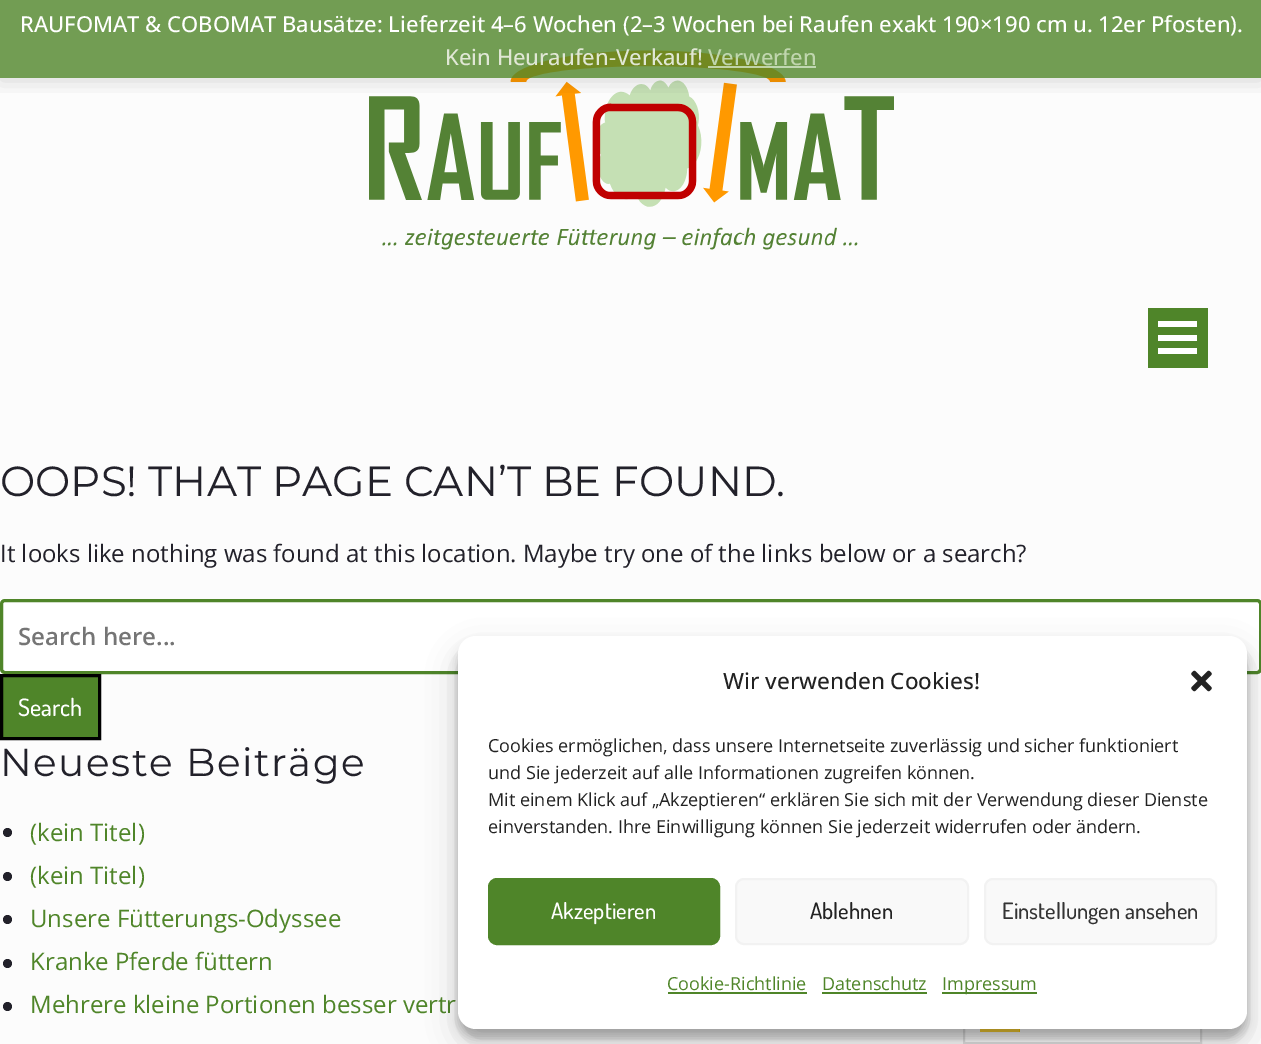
%!PS-Adobe-3.0
%%BoundingBox: 0 0 1261 1044
%%LanguageLevel: 3
%%Pages: 1
%%EndComments
%%BeginProlog
/setink { 3 { 255 div 3 1 roll } repeat setrgbcolor } def
/usefont { [ exch dup neg 0 0 3 -1 roll 0 0 ] selectfont } def
/drawtext { setink usefont moveto show } def
/fillbox { setink rectfill } def
/setalpha { dup .setfillconstantalpha .setstrokeconstantalpha } def
/disc { newpath 0 360 arc closepath } def
/rrect { 5 dict begin { /r /h /w /y /x } { exch def } forall
  x r add y moveto x w add y 2 copy h add r arct x w add y h add x 1 index r arct
  x y h add x y r arct x y 2 copy exch w add exch r arct closepath end } def
/softshadow { 12 dict begin { /a /b /q /h /w /y /x } { exch def } forall gsave /was 0 def
  9 -2 -9 { dup b mul 4 div /e exch def 1 sub .425 mul 2.718 exch exp 1 add a .99 .min exch div /now exch def
    1 1 now sub 1 was sub div sub setalpha /was now def
    w h .min e 2 mul add 0 gt { x e sub y e sub w e 2 mul add h e 2 mul add
      q e add b .6 mul add w h .min 2 div e add .min 0 .max rrect fill } if } for grestore end } def
/drawimage { 5 dict begin { /h /w /y /x /name } { exch def } forall
  gsave x y translate w h scale
  w h 8 [w 0 0 h 0 0] name (r) file false 3 colorimage grestore end } def
%%EndProlog
%%BeginSetup
<< /PageSize [1261 1044] /PageUsesTransparency true >> setpagedevice
%%EndSetup
%%Page: 1 1
0 .pushpdf14devicefilter
0 1044 translate 1 -1 scale
4 setmiterlimit
0 0 1261 1044 252 252 252 fillbox
(assets/img1.rgb) 369 50 525 200 drawimage
gsave
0 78 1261 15 rectclip
0 0 0 setink
0 2 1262 78 0 11 0.16 softshadow
grestore
0.8 setalpha
0 0 1261 78 79 133 41 fillbox
1 setalpha
(RAUFOMAT & COBOMAT Bausätze: Lieferzeit 4–6 Wochen \(2–3 Wochen bei Raufen exakt 190×190 cm u. 12er Pfosten\).) 20 32 /OpenSans-Medium 22 255 255 255 drawtext
(Kein Heuraufen-Verkauf!) 445 65 /OpenSans-Medium 22 224 231 213 drawtext
(Verwerfen) 708 65 /OpenSans-Medium 22 192 214 174 drawtext
0.8 setalpha
708 66 108 2 212 229 200 fillbox
1 setalpha
1148 308 60 60 79 133 41 fillbox
1158 335 39 6 255 255 255 fillbox
1158 321 39 6 255 255 255 fillbox
1158 348 39 6 255 255 255 fillbox
(OOPS! THAT PAGE CAN’T BE FOUND.) 0 496 /Montserrat-Regular 42 34 33 42 drawtext
(It looks like nothing was found at this location. Maybe try one of the links below or a search?) 0 562 /OpenSans-Regular 24 34 33 42 drawtext
255 255 255 setink
1.5 600.5 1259 72 3.5 rrect gsave fill grestore
79 133 41 setink
3 setlinewidth
stroke
(Search here...) 18 645 /OpenSans-SemiBold 24 117 117 117 drawtext
79 133 41 setink
1.5 675.5 moveto 99.5 675.5 lineto 99.5 738.5 lineto 1.5 738.5 lineto closepath gsave fill grestore
0 0 0 setink
stroke
(Search) 18 716 /Dosis-Medium 24 255 255 255 drawtext
/Montserrat-Regular 39 usefont
34 33 42 setink
0 776 moveto 1.5 0 (Neueste Beiträge) ashow
7.5 832.5 4.5 disc fill
(\(kein Titel\)) 30 841 /OpenSans-Regular 24 79 133 41 drawtext
34 33 42 setink
7.5 876.5 4.5 disc fill
(\(kein Titel\)) 30 884 /OpenSans-Regular 24 79 133 41 drawtext
34 33 42 setink
7.5 919.5 4.5 disc fill
(Unsere Fütterungs-Odyssee) 30 927 /OpenSans-Regular 24 79 133 41 drawtext
34 33 42 setink
7.5 963.5 4.5 disc fill
(Kranke Pferde füttern) 30 970 /OpenSans-Regular 24 79 133 41 drawtext
34 33 42 setink
7.5 1006.5 4.5 disc fill
(Mehrere kleine Portionen besser vertr) 30 1013 /OpenSans-Regular 24 79 133 41 drawtext
965 1029 235 13 255 255 255 fillbox
224 224 224 setink
2 setlinewidth
964 987 237 56 rectstroke
1019 1029 1 3 255 204 0 fillbox
980 1029 39 3 255 214 51 fillbox
0 0 0 setink
458 645 789 393 18 4.5 0.23 softshadow
458 651 789 393 18 15 0.19 softshadow
255 255 255 setink
458 636 789 393 18 rrect fill
(Wir verwenden Cookies!) 723 689 /OpenSans-Medium 22.5 34 34 34 drawtext
(assets/img2.rgb) 1191 670 21 22 drawimage
(Cookies ermöglichen, dass unsere Internetseite zuverlässig und sicher funktioniert) 488 752 /OpenSans-Regular 18 34 34 34 drawtext
(und Sie jederzeit auf alle Informationen zugreifen können.) 488 779 /OpenSans-Regular 18 34 34 34 drawtext
(Mit einem Klick auf „Akzeptieren“ erklären Sie sich mit der Verwendung dieser Dienste) 488 806 /OpenSans-Regular 18 34 34 34 drawtext
(einverstanden. Ihre Einwilligung können Sie jederzeit widerrufen oder ändern.) 488 833 /OpenSans-Regular 18 34 34 34 drawtext
79 133 41 setink
489 879 230 65 8 rrect gsave fill grestore
stroke
(Akzeptieren) 551 919 /Dosis-Medium 22.5 255 255 255 drawtext
249 249 249 setink
736 879 232 65 8 rrect gsave fill grestore
242 242 242 setink
stroke
(Ablehnen) 810 919 /Dosis-Medium 22.5 34 34 34 drawtext
249 249 249 setink
985 879 231 65 8 rrect gsave fill grestore
242 242 242 setink
stroke
(Einstellungen ansehen) 1002 919 /Dosis-Medium 22.5 51 51 51 drawtext
(Cookie-Richtlinie) 667 990 /OpenSans-Regular 18 79 133 41 drawtext
668 992 139 2 79 133 41 fillbox
(Datenschutz) 822 990 /OpenSans-Regular 18 79 133 41 drawtext
822 992 105 2 79 133 41 fillbox
942 992 95 2 79 133 41 fillbox
(Impressum) 942 990 /OpenSans-Regular 18 79 133 41 drawtext
.poppdf14devicefilter showpage
%%EOF
